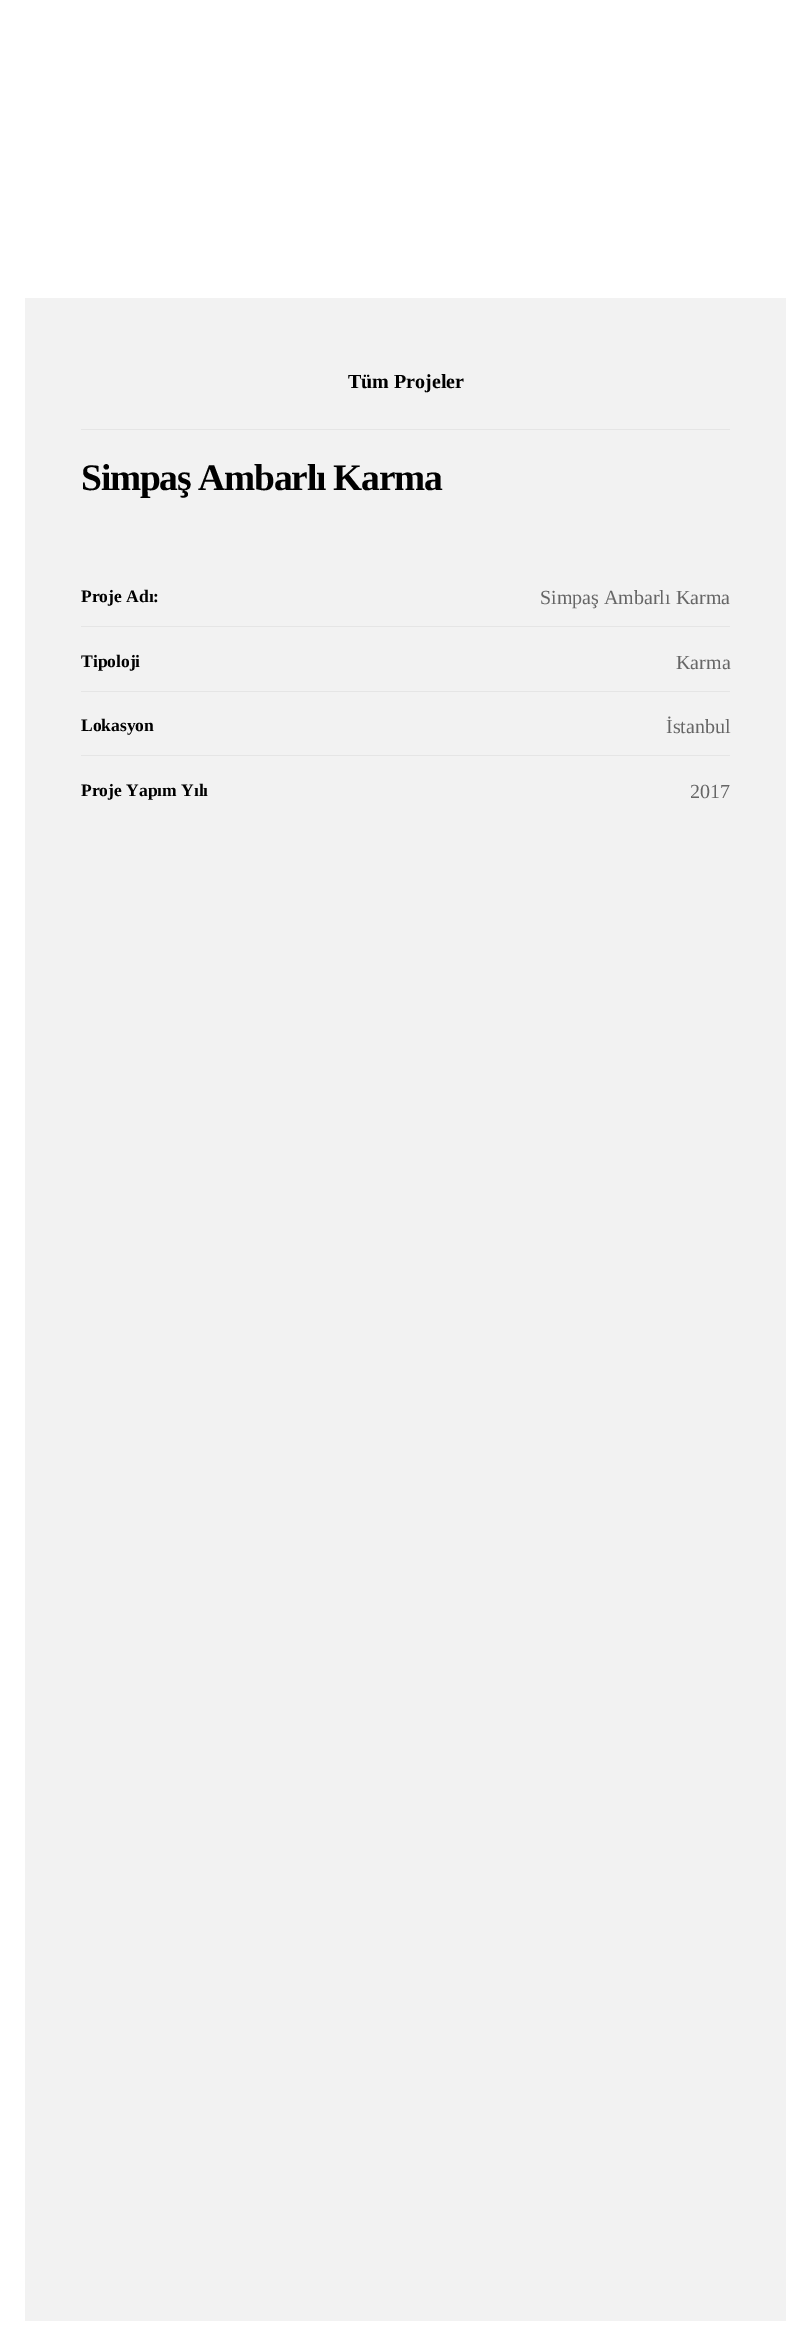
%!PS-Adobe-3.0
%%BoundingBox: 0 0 811 2346
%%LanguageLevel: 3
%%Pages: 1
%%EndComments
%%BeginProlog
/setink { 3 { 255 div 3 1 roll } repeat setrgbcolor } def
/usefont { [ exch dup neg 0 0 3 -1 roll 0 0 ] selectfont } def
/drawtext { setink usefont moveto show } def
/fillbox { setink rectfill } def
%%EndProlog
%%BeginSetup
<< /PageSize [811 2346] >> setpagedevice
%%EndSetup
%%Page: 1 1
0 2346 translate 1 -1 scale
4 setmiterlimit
0 0 811 2346 255 255 255 fillbox
25 298 761 2023 242 242 242 fillbox
81 429 649 1 229 229 229 fillbox
(Tüm Projeler) 348 388 /LiberationSerif-Bold 20 0 0 0 drawtext
/LiberationSerif-Bold 37.5 usefont
81 490 moveto -1.25 0 (Simpaş Ambarlı Karma) ashow
81 626 649 1 229 229 229 fillbox
(Proje Adı:) 81 602 /LiberationSerif-Bold 17.5 0 0 0 drawtext
(Simpaş Ambarlı Karma) 540 604 /LiberationSerif-Regular 20 102 102 102 drawtext
81 691 649 1 229 229 229 fillbox
(Tipoloji) 81 667 /LiberationSerif-Bold 17.5 0 0 0 drawtext
(Karma) 676 669 /LiberationSerif-Regular 20 102 102 102 drawtext
81 755 649 1 229 229 229 fillbox
(Lokasyon) 81 731 /LiberationSerif-Bold 17.5 0 0 0 drawtext
(İstanbul) 666 733 /LiberationSerif-Regular 20 102 102 102 drawtext
(Proje Yapım Yılı) 81 796 /LiberationSerif-Bold 17.5 0 0 0 drawtext
(2017) 690 798 /LiberationSerif-Regular 20 102 102 102 drawtext
showpage
%%EOF
